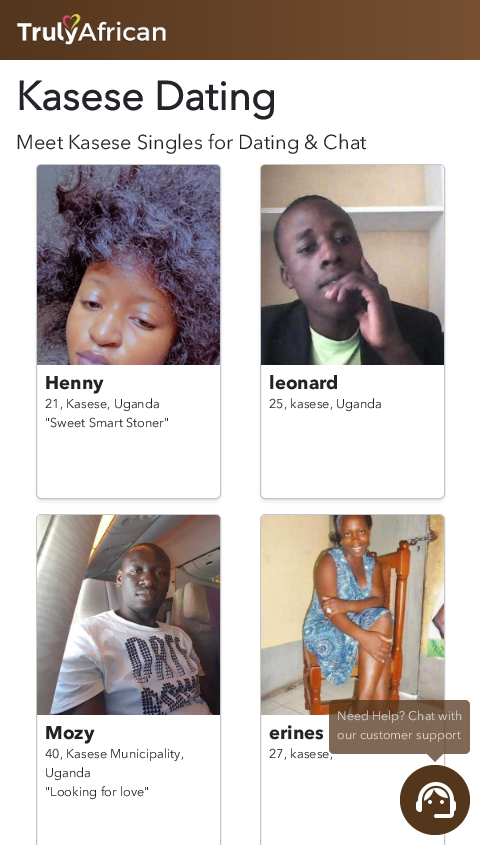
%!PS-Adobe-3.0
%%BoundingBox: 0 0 480 845
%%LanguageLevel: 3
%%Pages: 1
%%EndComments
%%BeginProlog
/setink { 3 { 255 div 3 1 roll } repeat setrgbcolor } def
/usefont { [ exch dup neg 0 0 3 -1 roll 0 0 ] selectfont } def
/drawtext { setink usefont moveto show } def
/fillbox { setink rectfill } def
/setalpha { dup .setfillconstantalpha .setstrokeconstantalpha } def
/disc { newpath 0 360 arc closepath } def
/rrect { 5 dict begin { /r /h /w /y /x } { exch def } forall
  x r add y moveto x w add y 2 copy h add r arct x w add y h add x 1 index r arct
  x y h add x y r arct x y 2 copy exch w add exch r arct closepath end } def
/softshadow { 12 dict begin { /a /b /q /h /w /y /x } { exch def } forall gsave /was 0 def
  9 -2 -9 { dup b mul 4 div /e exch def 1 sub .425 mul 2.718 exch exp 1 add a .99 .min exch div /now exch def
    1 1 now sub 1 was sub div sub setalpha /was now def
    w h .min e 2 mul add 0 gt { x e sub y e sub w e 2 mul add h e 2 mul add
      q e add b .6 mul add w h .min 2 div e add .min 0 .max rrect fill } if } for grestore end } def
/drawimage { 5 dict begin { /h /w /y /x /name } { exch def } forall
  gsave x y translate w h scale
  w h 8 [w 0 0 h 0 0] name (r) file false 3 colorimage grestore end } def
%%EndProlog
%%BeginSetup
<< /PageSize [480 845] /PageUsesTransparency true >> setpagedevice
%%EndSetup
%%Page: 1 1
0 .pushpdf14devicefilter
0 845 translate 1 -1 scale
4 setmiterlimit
0 0 480 845 255 255 255 fillbox
gsave 0 0 moveto 480 0 lineto 480 60 lineto 0 60 lineto closepath clip newpath
<< /ShadingType 2 /ColorSpace /DeviceRGB /Coords [0 30 480 30] /Extend [true true] /Function << /FunctionType 2 /Domain [0 1] /C0 [0.325 0.208 0.114] /C1 [0.467 0.314 0.196] /N 1 >> >> shfill grestore
(assets/img1.rgb) 16 14 150 32 drawimage
(Kasese Dating) 16 110 /AvenirNext-Bold 40 33 37 41 drawtext
(Meet Kasese Singles for Dating & Chat) 16 149 /AvenirNext-Regular 20 33 37 41 drawtext
gsave
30 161 moveto 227 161 lineto 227 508 lineto 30 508 lineto closepath 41 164 moveto 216 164 lineto 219 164 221 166 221 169 curveto 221 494 lineto 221 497 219 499 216 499 curveto 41 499 lineto 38 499 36 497 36 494 curveto 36 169 lineto 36 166 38 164 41 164 curveto closepath eoclip newpath
90 90 90 setink
37 168 183 333 4 2 0.17 softshadow
grestore
198 198 198 setink
36.5 164.5 184 334 4.5 rrect stroke
(assets/img2.rgb) 37 165 183 200 drawimage
(Henny) 45 389 /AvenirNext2-Bold 18.5 35 35 35 drawtext
(21, Kasese, Uganda) 45 408 /AvenirNext-Regular 12.75 35 35 35 drawtext
("Sweet Smart Stoner") 45 427 /AvenirNext-Regular 12.75 35 35 35 drawtext
gsave
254 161 moveto 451 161 lineto 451 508 lineto 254 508 lineto closepath 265 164 moveto 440 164 lineto 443 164 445 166 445 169 curveto 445 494 lineto 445 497 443 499 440 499 curveto 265 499 lineto 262 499 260 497 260 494 curveto 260 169 lineto 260 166 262 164 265 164 curveto closepath eoclip newpath
90 90 90 setink
261 168 183 333 4 2 0.17 softshadow
grestore
198 198 198 setink
260.5 164.5 184 334 4.5 rrect stroke
(assets/img3.rgb) 261 165 183 200 drawimage
(leonard) 269 389 /AvenirNext2-Bold 18.5 35 35 35 drawtext
(25, kasese, Uganda) 269 408 /AvenirNext-Regular 12.75 35 35 35 drawtext
198 198 198 setink
36.5 514.5 184 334 4.5 rrect stroke
(assets/img4.rgb) 37 515 183 200 drawimage
(Mozy) 45 739 /AvenirNext2-Bold 18.5 35 35 35 drawtext
(40, Kasese Municipality,) 45 758 /AvenirNext-Regular 12.75 35 35 35 drawtext
(Uganda) 45 777 /AvenirNext-Regular 12.75 35 35 35 drawtext
("Looking for love") 45 796 /AvenirNext-Regular 12.75 35 35 35 drawtext
198 198 198 setink
260.5 514.5 184 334 4.5 rrect stroke
(assets/img5.rgb) 261 515 183 200 drawimage
(erines) 269 739 /AvenirNext2-Bold 18.5 35 35 35 drawtext
(27, kasese,) 269 758 /AvenirNext-Regular 12.75 35 35 35 drawtext
0.75 setalpha
84 54 28 setink
329 700 141 54 5 rrect fill
1 setalpha
(Need Help? Chat with) 337 720 /AvenirNext-Regular 12.5 222 216 210 drawtext
(our customer support) 337 739 /AvenirNext-Regular 12.5 222 216 210 drawtext
127 104 85 setink
425 752 moveto 445 752 lineto 435 762 lineto closepath fill
84 54 28 setink
435 800 35 disc fill
(assets/img6.rgb) 416 782 40 36 drawimage
.poppdf14devicefilter showpage
%%EOF
